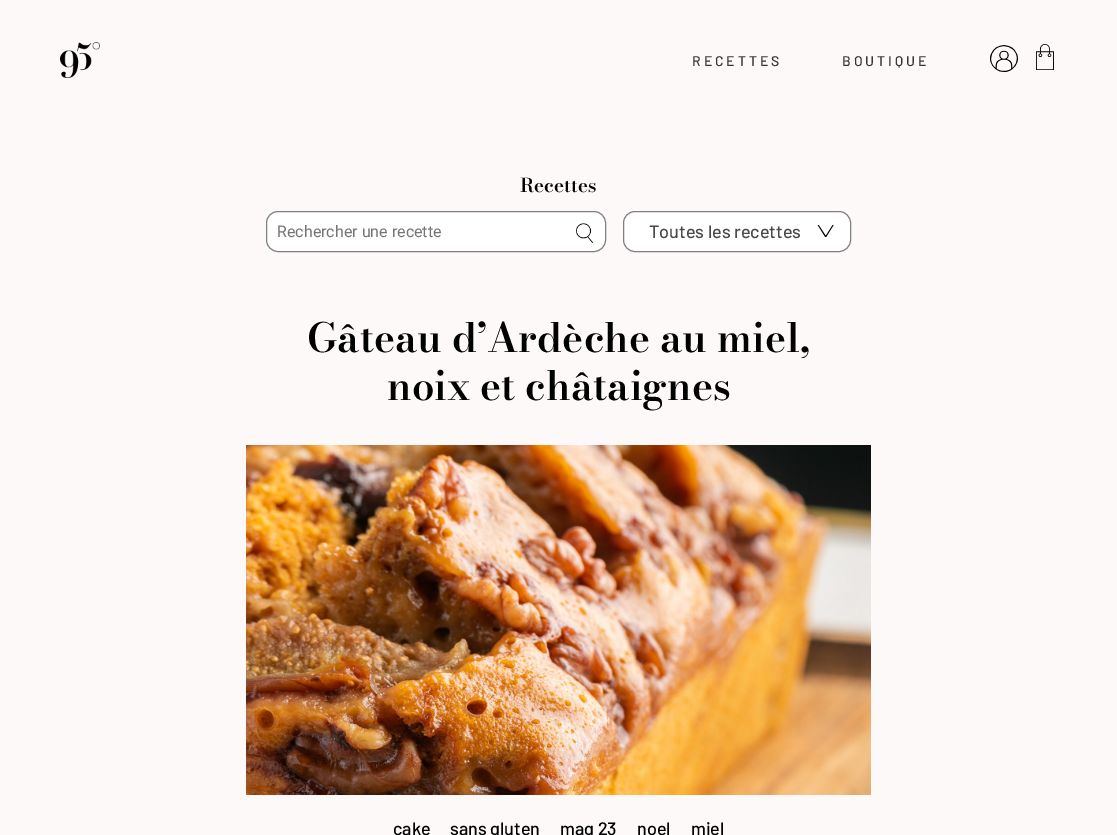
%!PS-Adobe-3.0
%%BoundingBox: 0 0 1117 835
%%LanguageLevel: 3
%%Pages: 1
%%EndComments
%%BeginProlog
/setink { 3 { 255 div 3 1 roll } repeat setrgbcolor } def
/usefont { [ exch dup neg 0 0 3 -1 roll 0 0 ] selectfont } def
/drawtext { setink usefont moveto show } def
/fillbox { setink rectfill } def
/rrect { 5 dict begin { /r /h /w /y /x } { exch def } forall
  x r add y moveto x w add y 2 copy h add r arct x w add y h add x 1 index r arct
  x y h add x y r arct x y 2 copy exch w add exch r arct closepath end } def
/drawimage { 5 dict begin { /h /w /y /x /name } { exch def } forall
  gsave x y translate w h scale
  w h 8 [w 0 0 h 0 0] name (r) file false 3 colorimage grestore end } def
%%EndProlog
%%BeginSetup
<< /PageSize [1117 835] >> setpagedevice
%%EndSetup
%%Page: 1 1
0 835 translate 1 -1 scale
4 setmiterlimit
0 0 1117 835 252 249 248 fillbox
(assets/img1.rgb) 60 42 40 36 drawimage
/Barlow-Medium 14 usefont
54 54 54 setink
692 66 moveto 3 0 (RECETTES) ashow
842 66 moveto 3 0 (BOUTIQUE) ashow
(assets/img2.rgb) 990 45 28 27 drawimage
(assets/img3.rgb) 1036 44 18 26 drawimage
(Recettes) 520 192 /BodoniModa-SemiBold 19 0 0 0 drawtext
255 255 255 setink
266.5 211.5 339 40 11.5 rrect gsave fill grestore
128 128 128 setink
stroke
(Rechercher une recette) 277 237 /Roboto-Regular 16 117 117 117 drawtext
(assets/img4.rgb) 576 223 17 20 drawimage
255 255 255 setink
623 211 228 41 12 rrect fill
(assets/img5.rgb) 817 225 17 12 drawimage
128 128 128 setink
623.5 211.5 227 40 11.5 rrect stroke
(Toutes les recettes) 649 238 /Barlow-Medium 18 74 74 74 drawtext
(Gâteau d’Ardèche au miel,) 307 352 /BodoniModa-SemiBold 40 0 0 0 drawtext
(noix et châtaignes) 387 400 /BodoniModa-SemiBold 40 0 0 0 drawtext
(assets/img6.rgb) 246 445 625 350 drawimage
(cake) 393 835 /Barlow-Medium 18 0 0 0 drawtext
(sans gluten) 450 835 /Barlow-Medium 18 0 0 0 drawtext
(mag 23) 560 835 /Barlow-Medium 18 0 0 0 drawtext
(noel) 637 835 /Barlow-Medium 18 0 0 0 drawtext
(miel) 691 835 /Barlow-Medium 18 0 0 0 drawtext
showpage
%%EOF
